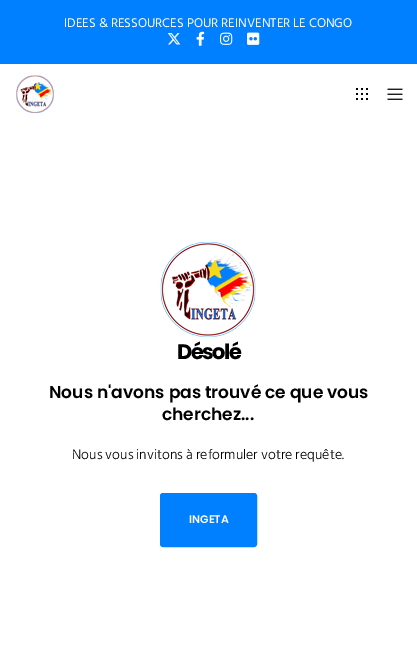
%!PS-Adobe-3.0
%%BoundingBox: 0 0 417 661
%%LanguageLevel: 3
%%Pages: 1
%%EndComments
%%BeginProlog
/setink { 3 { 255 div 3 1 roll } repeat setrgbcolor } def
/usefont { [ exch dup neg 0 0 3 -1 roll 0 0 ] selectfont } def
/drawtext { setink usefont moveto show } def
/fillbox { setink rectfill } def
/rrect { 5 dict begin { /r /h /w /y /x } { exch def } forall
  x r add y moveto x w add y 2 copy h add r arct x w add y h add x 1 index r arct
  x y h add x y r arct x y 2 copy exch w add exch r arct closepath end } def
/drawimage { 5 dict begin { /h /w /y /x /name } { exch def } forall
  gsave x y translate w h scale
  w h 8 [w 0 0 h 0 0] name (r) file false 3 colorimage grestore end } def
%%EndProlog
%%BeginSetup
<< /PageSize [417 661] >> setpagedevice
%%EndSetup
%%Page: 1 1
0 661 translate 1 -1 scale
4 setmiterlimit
0 0 417 661 0 128 255 fillbox
(IDEES & RESSOURCES POUR REINVENTER LE CONGO) 64 27 /HindSiliguri-Regular 13 255 255 255 drawtext
(assets/img1.rgb) 167 33 14 12 drawimage
(assets/img2.rgb) 196 31 9 15 drawimage
(assets/img3.rgb) 220 32 13 13 drawimage
(assets/img4.rgb) 247 32 13 13 drawimage
0 64 417 597 255 255 255 fillbox
(assets/img5.rgb) 16 75 38 39 drawimage
(assets/img6.rgb) 356 88 12 12 drawimage
(assets/img7.rgb) 387 88 16 12 drawimage
(assets/img8.rgb) 160 242 96 95 drawimage
/Poppins-Bold 21 usefont
0 0 0 setink
177 359 moveto -1.5 0 (Désolé) ashow
(Nous n'avons pas trouvé ce que vous) 49 398 /Poppins-SemiBold 17 0 0 0 drawtext
(cherchez...) 162 420 /Poppins-SemiBold 17 0 0 0 drawtext
(Nous vous invitons à reformuler votre requête.) 72 459 /HindSiliguri-Light 14 0 0 0 drawtext
0 128 255 setink
160.5 493.5 96 53 2.5 rrect gsave fill grestore
stroke
(INGETA) 189 523 /Poppins-SemiBold 11 255 255 255 drawtext
showpage
%%EOF
